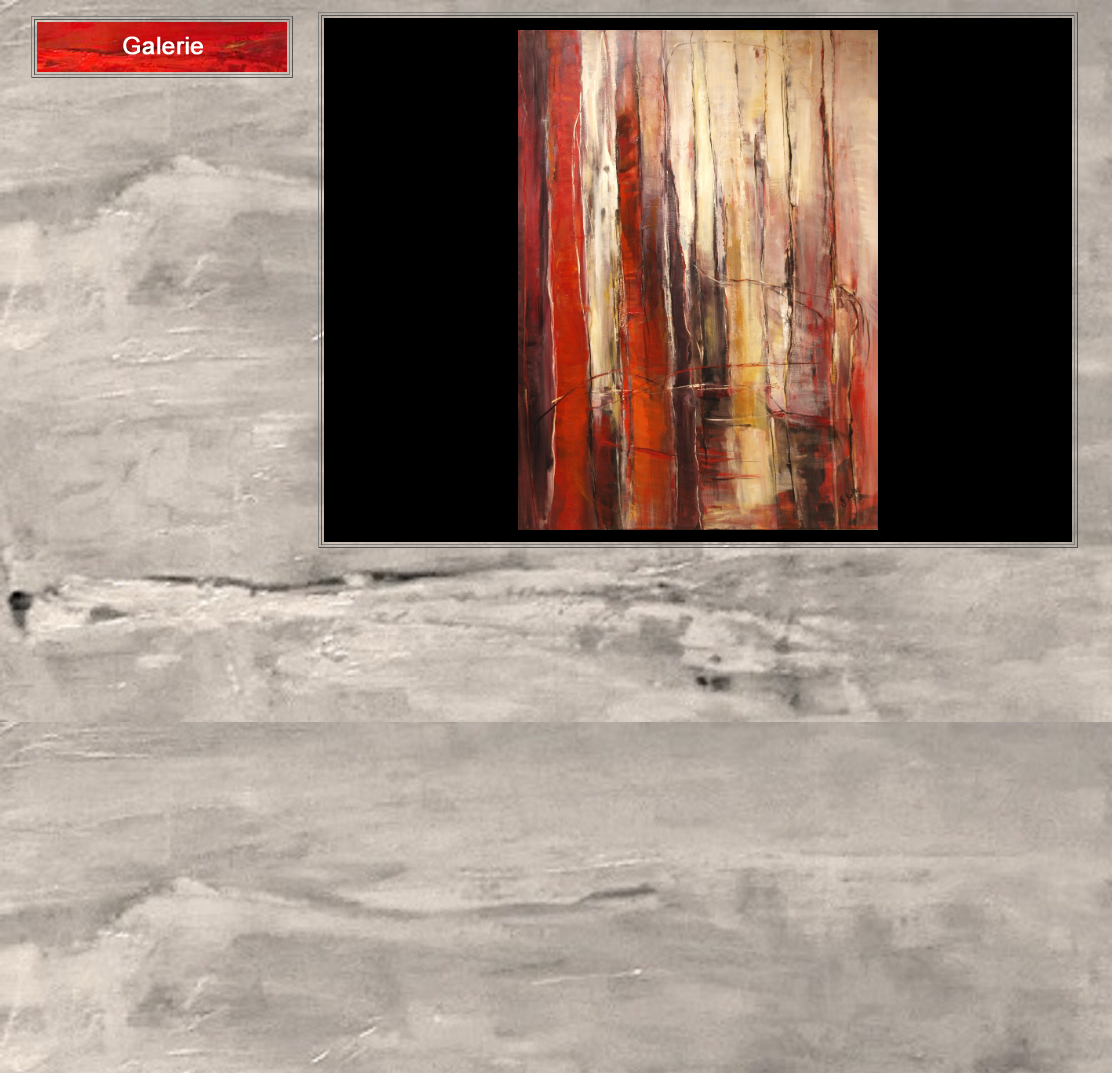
%!PS-Adobe-3.0
%%BoundingBox: 0 0 1112 1073
%%LanguageLevel: 3
%%Pages: 1
%%EndComments
%%BeginProlog
/setink { 3 { 255 div 3 1 roll } repeat setrgbcolor } def
/fillbox { setink rectfill } def
/drawimage { 5 dict begin { /h /w /y /x /name } { exch def } forall
  gsave x y translate w h scale
  w h 8 [w 0 0 h 0 0] name (r) file false 3 colorimage grestore end } def
%%EndProlog
%%BeginSetup
<< /PageSize [1112 1073] >> setpagedevice
%%EndSetup
%%Page: 1 1
0 1073 translate 1 -1 scale
4 setmiterlimit
0 0 1112 1073 255 255 255 fillbox
(assets/img1.rgb) 0 0 1112 1073 drawimage
31 16 262 1 128 128 128 fillbox
292 16 1 62 85 85 85 fillbox
31 77 262 1 85 85 85 fillbox
31 16 1 62 128 128 128 fillbox
34 19 256 1 85 85 85 fillbox
289 19 1 56 128 128 128 fillbox
34 74 256 1 128 128 128 fillbox
34 19 1 56 85 85 85 fillbox
(assets/img2.rgb) 37 22 250 50 drawimage
318 12 760 1 128 128 128 fillbox
1077 12 1 536 85 85 85 fillbox
318 547 760 1 85 85 85 fillbox
318 12 1 536 128 128 128 fillbox
321 15 754 1 85 85 85 fillbox
1074 15 1 530 128 128 128 fillbox
321 544 754 1 128 128 128 fillbox
321 15 1 530 85 85 85 fillbox
324 18 748 524 0 0 0 fillbox
(assets/img3.rgb) 518 30 360 500 drawimage
showpage
%%EOF
